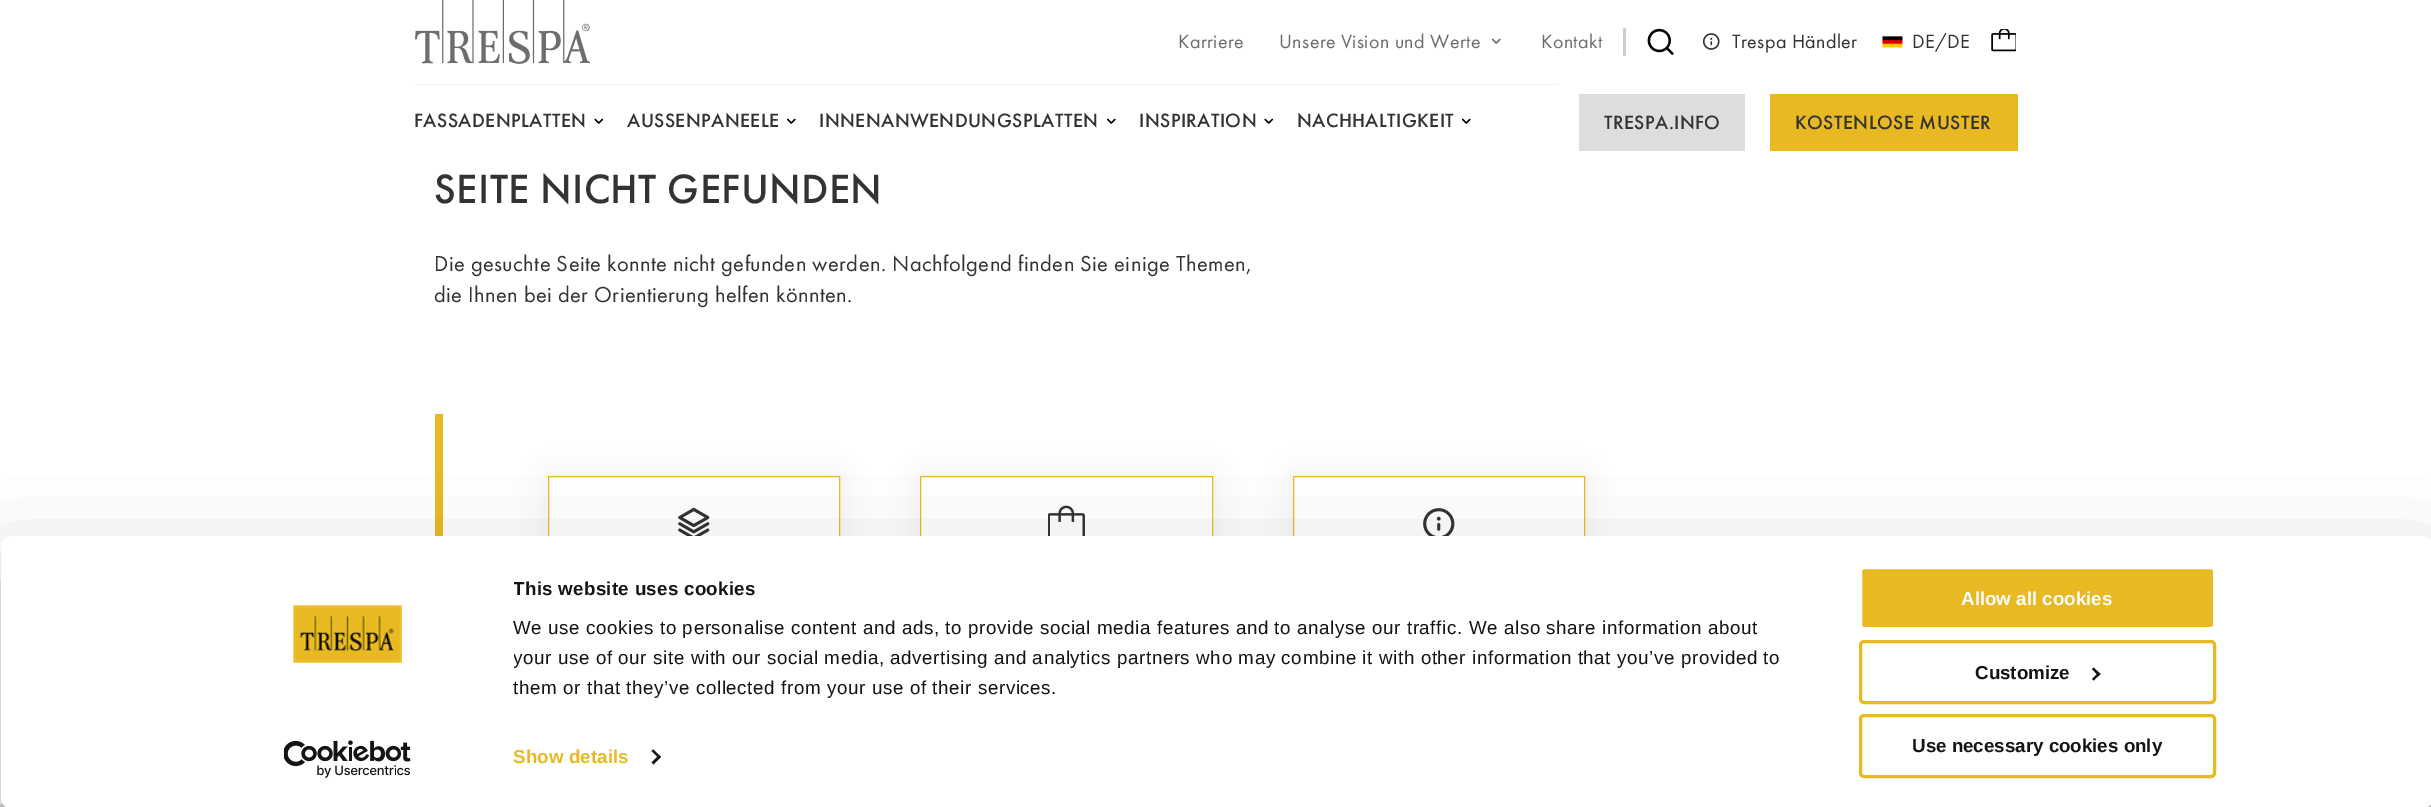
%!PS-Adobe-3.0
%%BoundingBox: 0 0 2431 807
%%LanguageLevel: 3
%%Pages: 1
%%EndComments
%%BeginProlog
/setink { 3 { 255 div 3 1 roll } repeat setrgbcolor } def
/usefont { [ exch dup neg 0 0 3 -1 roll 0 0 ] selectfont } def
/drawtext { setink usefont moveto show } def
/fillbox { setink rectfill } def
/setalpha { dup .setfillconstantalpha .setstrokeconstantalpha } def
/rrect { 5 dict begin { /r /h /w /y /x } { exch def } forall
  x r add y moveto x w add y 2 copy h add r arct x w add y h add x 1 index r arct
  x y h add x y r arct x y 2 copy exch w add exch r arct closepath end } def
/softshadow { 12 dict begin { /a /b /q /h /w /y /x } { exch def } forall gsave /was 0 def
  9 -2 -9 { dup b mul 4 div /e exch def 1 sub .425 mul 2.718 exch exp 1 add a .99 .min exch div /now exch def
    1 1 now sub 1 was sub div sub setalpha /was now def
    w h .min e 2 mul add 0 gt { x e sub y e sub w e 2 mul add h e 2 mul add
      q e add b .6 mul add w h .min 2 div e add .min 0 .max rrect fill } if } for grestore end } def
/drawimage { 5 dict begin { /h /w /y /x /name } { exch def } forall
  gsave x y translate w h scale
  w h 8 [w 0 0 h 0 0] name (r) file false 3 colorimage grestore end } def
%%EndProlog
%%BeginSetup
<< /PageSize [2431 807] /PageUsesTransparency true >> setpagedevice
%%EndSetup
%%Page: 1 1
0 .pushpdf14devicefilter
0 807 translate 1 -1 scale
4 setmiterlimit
0 0 2431 807 255 255 255 fillbox
(assets/img1.rgb) 415 0 175 64 drawimage
1623 28 3 28 206 206 206 fillbox
/FuturaPT-Regular 20 usefont
108 108 108 setink
1178 48 moveto 0.4 0 (Karriere) ashow
1279 48 moveto 0.4 0 (Unsere Vision und Werte) ashow
(assets/img2.rgb) 1491 38 10 6 drawimage
1541 48 moveto 0.4 0 (Kontakt) ashow
(assets/img3.rgb) 1647 28 27 27 drawimage
(assets/img4.rgb) 1702 33 18 17 drawimage
51 51 51 setink
1732 48 moveto 0.4 0 (Trespa Händler) ashow
(assets/img5.rgb) 1882 35 21 13 drawimage
1912 48 moveto 0.4 0 (DE/DE) ashow
(assets/img6.rgb) 1991 29 25 23 drawimage
415 84 1144 1 244 244 244 fillbox
/FuturaPT-Medium 20 usefont
51 51 51 setink
414 127 moveto 0.4 0 (FASSADENPLATTEN) ashow
(assets/img7.rgb) 594 118 10 6 drawimage
627 127 moveto 0.4 0 (AUSSENPANEELE) ashow
(assets/img8.rgb) 786 118 10 6 drawimage
819 127 moveto 0.4 0 (INNENANWENDUNGSPLATTEN) ashow
(assets/img8.rgb) 1106 118 10 6 drawimage
1139 127 moveto 0.4 0 (INSPIRATION) ashow
(assets/img7.rgb) 1264 118 10 6 drawimage
1297 127 moveto 0.4 0 (NACHHALTIGKEIT) ashow
(assets/img8.rgb) 1461 118 10 6 drawimage
1579 94 166 57 221 221 221 fillbox
51 51 51 setink
1604 129 moveto 0.4 0 (TRESPA.INFO) ashow
1770 94 248 57 232 185 34 fillbox
51 51 51 setink
1795 129 moveto 0.4 0 (KOSTENLOSE MUSTER) ashow
/FuturaPT-Medium 42.5 usefont
434 203 moveto 0.4 0 (SEITE NICHT GEFUNDEN) ashow
/FuturaPT-Regular 22.5 usefont
434 271 moveto 0.4 0 (Die gesuchte Seite konnte nicht gefunden werden. Nachfolgend finden Sie einige Themen,) ashow
434 302 moveto 0.4 0 (die Ihnen bei der Orientierung helfen könnten.) ashow
435 414 8 122 232 185 34 fillbox
238 238 238 setink
546 475 295 98 0 12.5 1 softshadow
549 477 290 59 255 255 255 fillbox
232 185 34 setink
548.5 476.5 291 94 rectstroke
(assets/img9.rgb) 678 507 32 29 drawimage
238 238 238 setink
919 475 295 98 0 12.5 1 softshadow
921 477 291 59 255 255 255 fillbox
232 185 34 setink
920.5 476.5 292 94 rectstroke
(assets/img10.rgb) 1048 505 37 31 drawimage
238 238 238 setink
1291 475 295 98 0 12.5 1 softshadow
1294 477 290 59 255 255 255 fillbox
232 185 34 setink
1293.5 476.5 291 94 rectstroke
(assets/img11.rgb) 1423 508 32 28 drawimage
0 804 2431 3 221 221 221 fillbox
0 0 0 setink
1 574 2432 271 10 44 0.3 softshadow
255 255 255 setink
1 536 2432 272 10 rrect fill
(assets/img12.rgb) 293 605 109 58 drawimage
(assets/img13.rgb) 284 740 127 38 drawimage
gsave
514 574 1310 129 rectclip
/LiberationSans-Bold 18.75 usefont
20 20 20 setink
513 595 moveto 0.3 0 (This website uses cookies) ashow
grestore
/LiberationSans-Regular 18.75 usefont
20 20 20 setink
513 634 moveto 0.62 0 (We use cookies to personalise content and ads, to provide social media features and to analyse our traffic. We also share information about) ashow
gsave
514 574 1310 129 rectclip
513 664 moveto 0.62 0 (your use of our site with our social media, advertising and analytics partners who may combine it with other information that you’ve provided to) ashow
grestore
513 694 moveto 0.62 0 (them or that they’ve collected from your use of their services.) ashow
/LiberationSans-Bold 18.75 usefont
232 185 34 setink
513 763 moveto 0.1 0 (Show details) ashow
20 20 20 setink
653.5 749.5 moveto 661 757 lineto 659 758.5 lineto 651.5 751 lineto closepath fill
659 755 moveto 661 757 lineto 653.5 764.5 lineto 651.5 762.5 lineto closepath fill
232 185 34 setink
1860.5 567.5 354 61 3.5 rrect gsave fill grestore
255 255 255 setink
3 setlinewidth
stroke
(Allow all cookies) 1961 605 /LiberationSans-Bold 18.75 255 255 255 drawtext
232 185 34 setink
1860.5 641.5 354 61 3.5 rrect stroke
(Customize) 1975 679 /LiberationSans-Bold 18.75 20 20 20 drawtext
2093.5 667.5 moveto 2100.5 674 lineto 2098.5 676 lineto 2092 669 lineto closepath fill
2098.5 672.5 moveto 2100.5 674 lineto 2093.5 680.5 lineto 2092 679 lineto closepath fill
232 185 34 setink
1860.5 715.5 354 61 3.5 rrect stroke
(Use necessary cookies only) 1912 752 /LiberationSans-Bold 18.75 20 20 20 drawtext
.poppdf14devicefilter showpage
%%EOF
